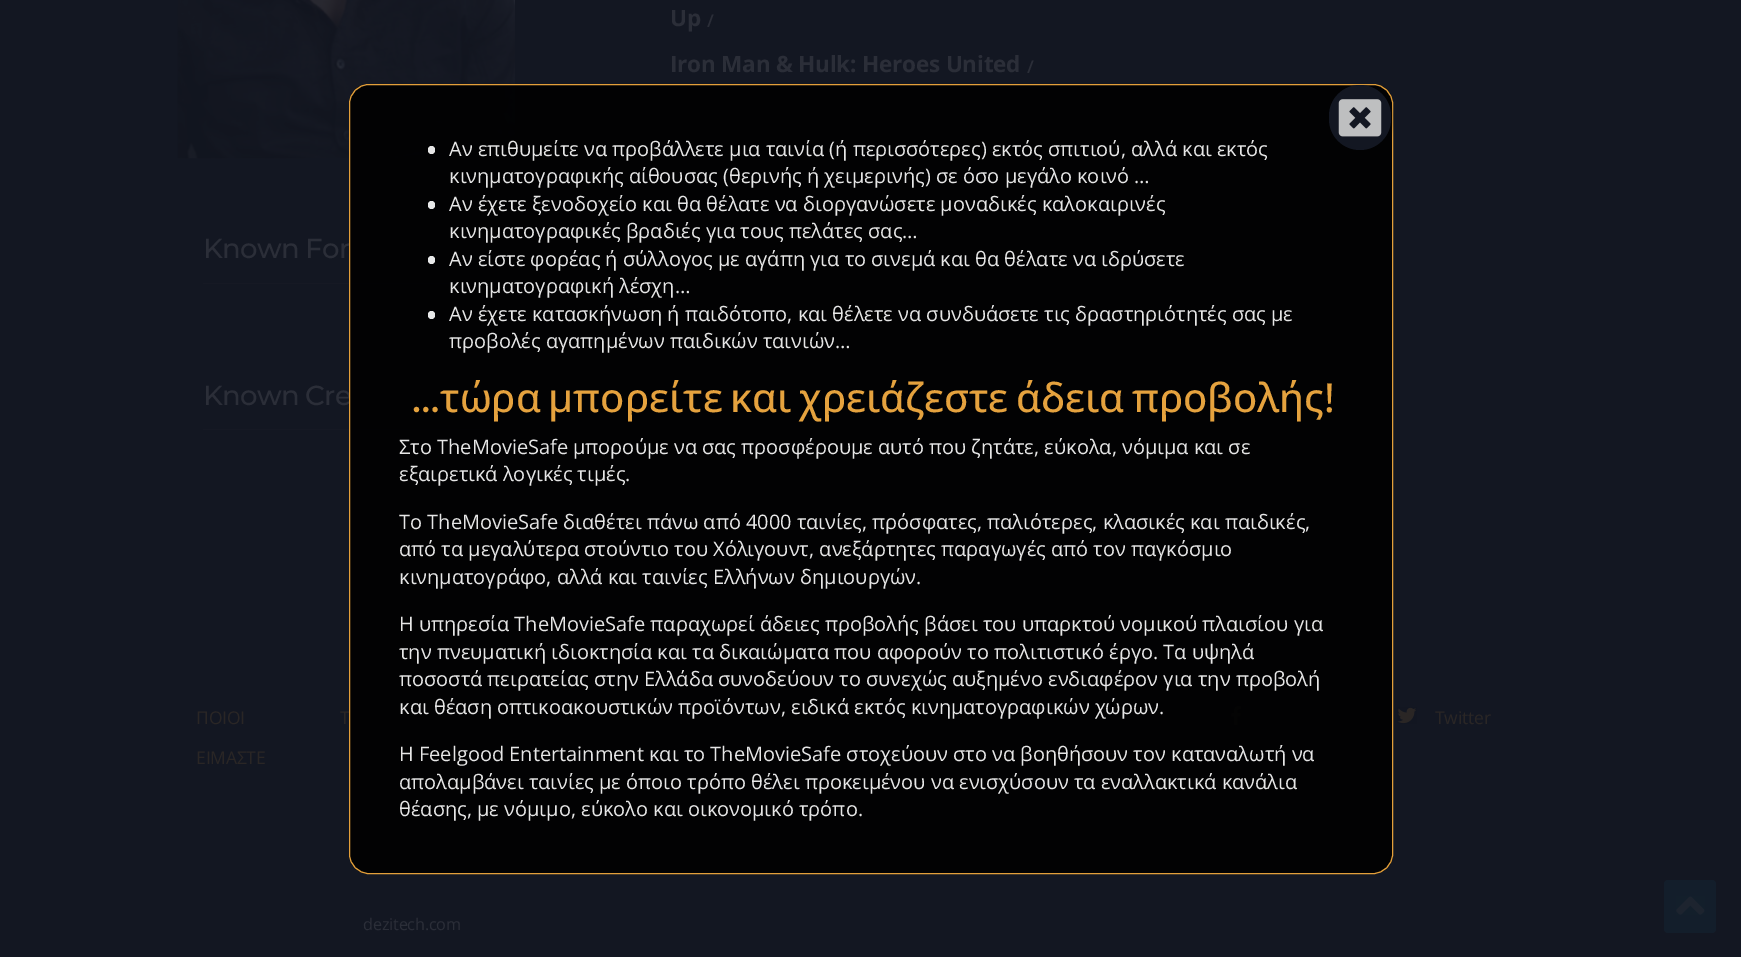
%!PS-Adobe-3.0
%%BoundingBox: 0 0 1741 957
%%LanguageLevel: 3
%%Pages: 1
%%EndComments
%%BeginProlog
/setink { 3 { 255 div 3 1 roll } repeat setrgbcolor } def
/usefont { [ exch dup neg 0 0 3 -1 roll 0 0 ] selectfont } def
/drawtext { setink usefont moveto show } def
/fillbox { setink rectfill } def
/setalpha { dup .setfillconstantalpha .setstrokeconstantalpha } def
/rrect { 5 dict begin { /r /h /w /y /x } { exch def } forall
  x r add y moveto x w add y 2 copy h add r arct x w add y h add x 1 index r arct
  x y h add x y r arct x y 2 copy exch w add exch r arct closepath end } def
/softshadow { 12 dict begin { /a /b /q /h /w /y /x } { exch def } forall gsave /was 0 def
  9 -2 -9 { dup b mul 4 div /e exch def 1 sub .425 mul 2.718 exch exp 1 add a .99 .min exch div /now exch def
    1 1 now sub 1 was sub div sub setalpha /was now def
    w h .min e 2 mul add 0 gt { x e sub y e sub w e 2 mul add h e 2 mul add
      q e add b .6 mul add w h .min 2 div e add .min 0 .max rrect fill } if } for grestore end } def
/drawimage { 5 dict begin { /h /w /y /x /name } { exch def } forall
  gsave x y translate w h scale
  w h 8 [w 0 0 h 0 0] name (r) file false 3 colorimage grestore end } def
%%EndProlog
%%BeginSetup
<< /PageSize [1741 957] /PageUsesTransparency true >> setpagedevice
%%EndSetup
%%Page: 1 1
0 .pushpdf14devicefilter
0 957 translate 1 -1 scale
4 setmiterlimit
0 0 1741 957 19 23 34 fillbox
/OpenSans-Bold 22.5 usefont
43 46 56 setink
670 26 moveto -0.2 0 (Up) ashow
/OpenSans-SemiBold 17.5 usefont
707 27 moveto -0.2 0 (/) ashow
/OpenSans-Bold 22.5 usefont
670 72 moveto -0.2 0 (Iron Man & Hulk: Heroes United) ashow
/OpenSans-SemiBold 17.5 usefont
1027 73 moveto -0.2 0 (/) ashow
(assets/img1.rgb) 177 0 338 159 drawimage
203 283 287 1 22 25 36 fillbox
/Montserrat-Medium 27.5 usefont
43 46 56 setink
203 258 moveto -0.75 0 (Known For) ashow
203 429 287 1 22 25 36 fillbox
43 46 56 setink
203 405 moveto -0.75 0 (Known Cre) ashow
/OpenSans-Regular 17.5 usefont
42 38 37 setink
196 724 moveto -0.2 0 (ΠΟΙΟΙ) ashow
196 764 moveto -0.2 0 (ΕΙΜΑΣΤΕ) ashow
340 724 moveto -0.2 0 (Τ) ashow
(assets/img2.rgb) 1231 706 10 19 drawimage
(assets/img3.rgb) 1397 707 20 17 drawimage
1435 724 moveto -0.2 0 (Twitter) ashow
/OpenSans-Regular 16.25 usefont
43 46 56 setink
363 930 moveto -0.2 0 (dezitech.com) ashow
0.9 setalpha
0 0 0 setink
349 84 1044 790 20 rrect fill
251 176 64 setink
349.5 84.5 1043 789 19.5 rrect stroke
1 setalpha
4 4 5 setink
1330 86 63 65 31.5 2 0.23 softshadow
19 23 34 setink
1329 85 62 65 31 rrect fill
(assets/img4.rgb) 1338 99 44 38 drawimage
230 230 230 setink
428 146 7 8 3.5 rrect fill
(Αν επιθυμείτε να προβάλλετε μια ταινία \(ή περισσότερες\) εκτός σπιτιού, αλλά και εκτός) 449 156 /OpenSans-Regular 20 230 230 230 drawtext
(κινηματογραφικής αίθουσας \(θερινής ή χειμερινής\) σε όσο μεγάλο κοινό …) 449 183 /OpenSans-Regular 20 230 230 230 drawtext
232 233 234 setink
428 201 7 8 3.5 rrect fill
(Αν έχετε ξενοδοχείο και θα θέλατε να διοργανώσετε μοναδικές καλοκαιρινές) 449 211 /OpenSans-Regular 20 230 230 230 drawtext
(κινηματογραφικές βραδιές για τους πελάτες σας…) 449 238 /OpenSans-Regular 20 230 230 230 drawtext
232 233 234 setink
428 256 7 8 3.5 rrect fill
(Αν είστε φορέας ή σύλλογος με αγάπη για το σινεμά και θα θέλατε να ιδρύσετε) 449 266 /OpenSans-Regular 20 230 230 230 drawtext
(κινηματογραφική λέσχη…) 449 293 /OpenSans-Regular 20 230 230 230 drawtext
232 233 234 setink
428 311 7 8 3.5 rrect fill
(Αν έχετε κατασκήνωση ή παιδότοπο, και θέλετε να συνδυάσετε τις δραστηριότητές σας με) 449 321 /OpenSans-Regular 20 230 230 230 drawtext
(προβολές αγαπημένων παιδικών ταινιών…) 449 348 /OpenSans-Regular 20 230 230 230 drawtext
(…) 412 412 /Montserrat-Medium 40 229 162 62 drawtext
/OpenSans-Medium 40 usefont
440 412 moveto -2.5 0 32 (τώρα μπορείτε και χρειάζεστε άδεια προβολής!) widthshow
(Στο TheMovieSafe μπορούμε να σας προσφέρουμε αυτό που ζητάτε, εύκολα, νόμιμα και σε) 399 454 /OpenSans-Regular 20 230 230 230 drawtext
(εξαιρετικά λογικές τιμές.) 399 481 /OpenSans-Regular 20 230 230 230 drawtext
(Το TheMovieSafe διαθέτει πάνω από 4000 ταινίες, πρόσφατες, παλιότερες, κλασικές και παιδικές,) 399 529 /OpenSans-Regular 20 230 230 230 drawtext
(από τα μεγαλύτερα στούντιο του Χόλιγουντ, ανεξάρτητες παραγωγές από τον παγκόσμιο) 399 556 /OpenSans-Regular 20 230 230 230 drawtext
(κινηματογράφο, αλλά και ταινίες Ελλήνων δημιουργών.) 399 584 /OpenSans-Regular 20 230 230 230 drawtext
(Η υπηρεσία TheMovieSafe παραχωρεί άδειες προβολής βάσει του υπαρκτού νομικού πλαισίου για) 399 631 /OpenSans-Regular 20 230 230 230 drawtext
(την πνευματική ιδιοκτησία και τα δικαιώματα που αφορούν το πολιτιστικό έργο. Τα υψηλά) 399 659 /OpenSans-Regular 20 230 230 230 drawtext
(ποσοστά πειρατείας στην Ελλάδα συνοδεύουν το συνεχώς αυξημένο ενδιαφέρον για την προβολή) 399 686 /OpenSans-Regular 20 230 230 230 drawtext
(και θέαση οπτικοακουστικών προϊόντων, ειδικά εκτός κινηματογραφικών χώρων.) 399 714 /OpenSans-Regular 20 230 230 230 drawtext
(Η Feelgood Entertainment και το TheMovieSafe στοχεύουν στο να βοηθήσουν τον καταναλωτή να) 399 761 /OpenSans-Regular 20 230 230 230 drawtext
(απολαμβάνει ταινίες με όποιο τρόπο θέλει προκειμένου να ενισχύσουν τα εναλλακτικά κανάλια) 399 789 /OpenSans-Regular 20 230 230 230 drawtext
(θέασης, με νόμιμο, εύκολο και οικονομικό τρόπο.) 399 816 /OpenSans-Regular 20 230 230 230 drawtext
19 30 43 setink
1664 880 52 53 4 rrect fill
(assets/img5.rgb) 1676 896 29 19 drawimage
.poppdf14devicefilter showpage
%%EOF
